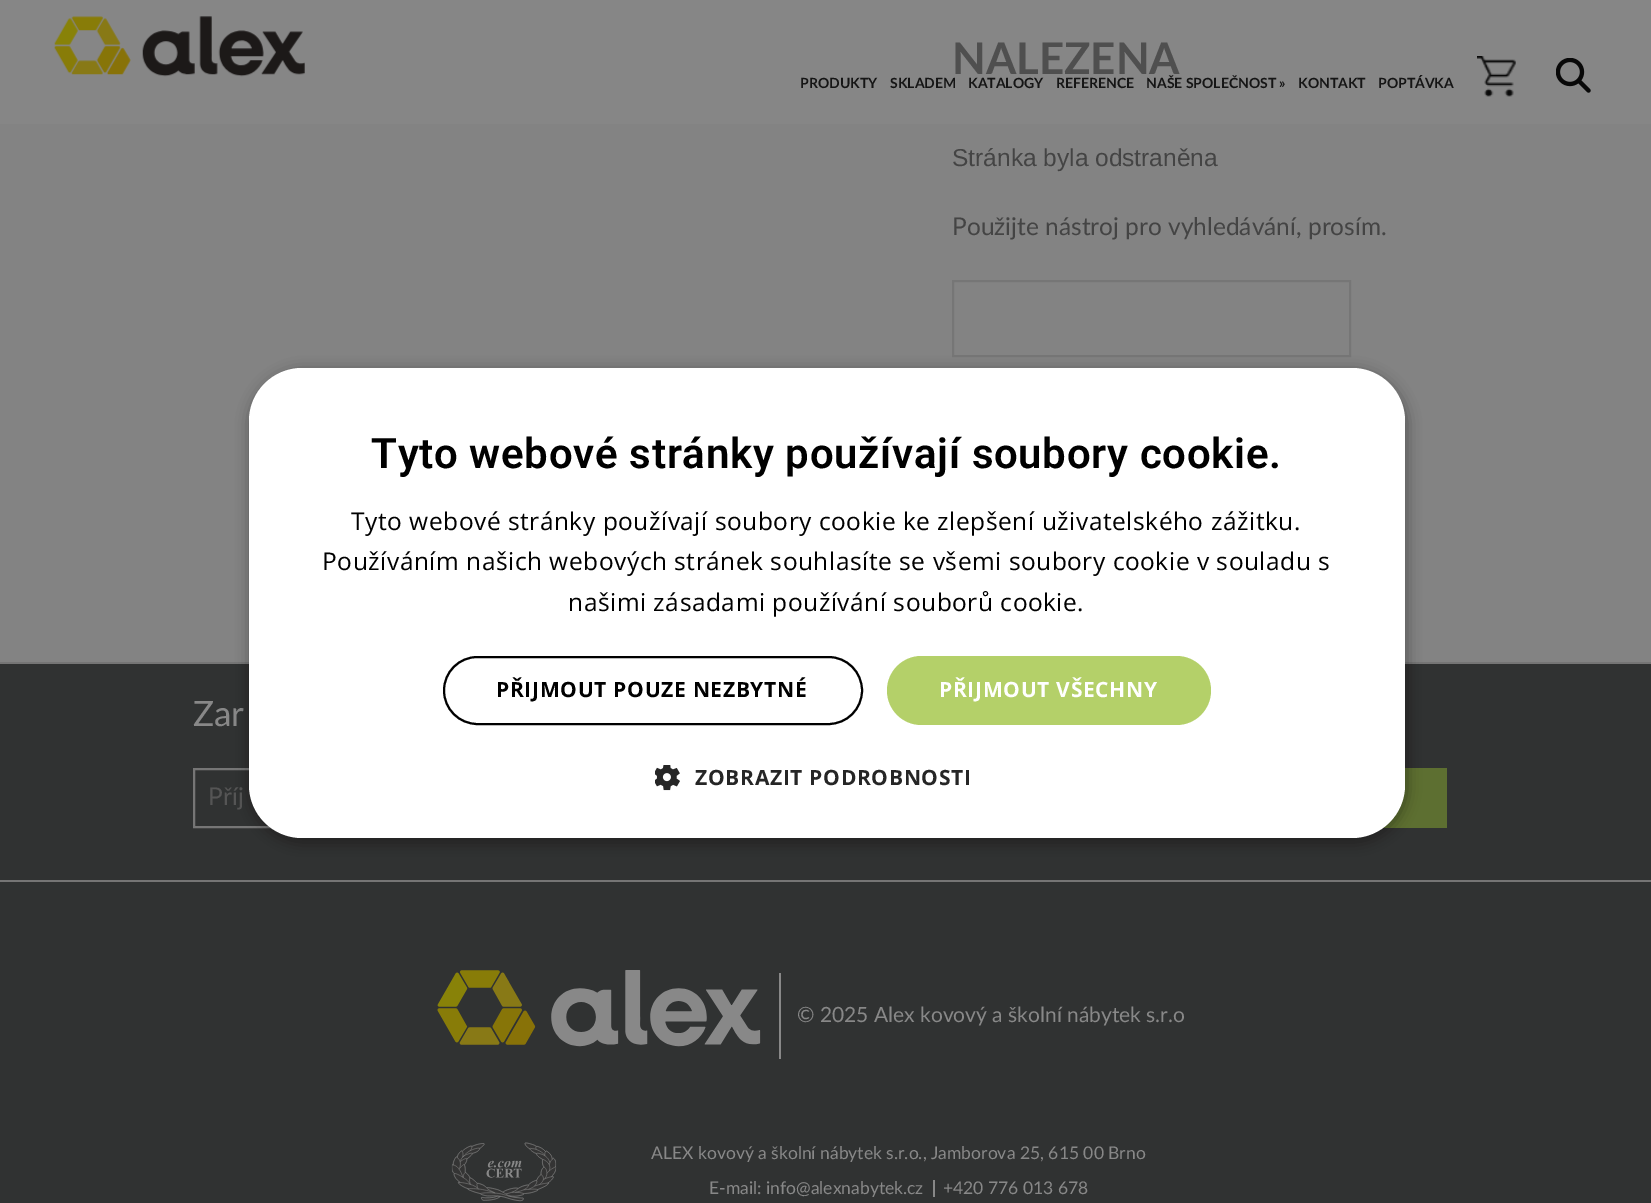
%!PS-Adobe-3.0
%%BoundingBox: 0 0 1651 1203
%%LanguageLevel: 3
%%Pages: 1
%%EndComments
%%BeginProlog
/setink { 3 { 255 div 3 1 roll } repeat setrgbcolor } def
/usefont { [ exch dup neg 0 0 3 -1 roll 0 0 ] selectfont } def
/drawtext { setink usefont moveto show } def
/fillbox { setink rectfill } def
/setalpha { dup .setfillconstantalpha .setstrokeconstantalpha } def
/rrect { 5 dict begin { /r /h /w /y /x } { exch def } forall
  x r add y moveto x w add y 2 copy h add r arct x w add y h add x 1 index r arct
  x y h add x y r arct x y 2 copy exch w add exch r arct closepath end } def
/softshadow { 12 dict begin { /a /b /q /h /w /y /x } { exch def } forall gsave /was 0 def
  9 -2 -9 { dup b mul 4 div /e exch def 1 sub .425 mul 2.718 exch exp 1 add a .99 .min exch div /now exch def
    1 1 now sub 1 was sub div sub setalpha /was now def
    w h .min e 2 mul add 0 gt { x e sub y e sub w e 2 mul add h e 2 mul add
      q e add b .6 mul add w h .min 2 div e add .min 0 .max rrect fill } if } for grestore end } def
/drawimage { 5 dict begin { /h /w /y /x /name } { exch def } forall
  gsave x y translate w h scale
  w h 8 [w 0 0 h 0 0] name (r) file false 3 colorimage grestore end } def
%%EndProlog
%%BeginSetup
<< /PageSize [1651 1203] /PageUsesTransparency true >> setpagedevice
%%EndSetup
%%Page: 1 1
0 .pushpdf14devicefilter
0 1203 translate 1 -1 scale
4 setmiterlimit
0 0 1651 1203 131 131 131 fillbox
0 0 1651 124 134 134 134 fillbox
(NALEZENA) 952 74 /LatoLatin-Bold 43.75 79 79 79 drawtext
(Stránka byla odstraněna) 952 166 /LiberationSans-Regular 24.5 68 68 68 drawtext
(Použijte nástroj pro vyhledávání, prosím.) 952 235 /LatoLatin-Regular 24.5 68 68 68 drawtext
118 118 118 setink
2 setlinewidth
953 281 397 75 rectstroke
(assets/img1.rgb) 54 16 251 61 drawimage
(PRODUKTY) 800 88 /LatoLatin-Bold 14 21 21 21 drawtext
(SKLADEM) 890 88 /LatoLatin-Bold 14 21 21 21 drawtext
(KATALOGY) 968 88 /LatoLatin-Bold 14 21 21 21 drawtext
(REFERENCE) 1056 88 /LatoLatin-Bold 14 21 21 21 drawtext
(NAŠE SPOLEČNOST ») 1146 88 /LatoLatin-Bold 14 21 21 21 drawtext
(KONTAKT) 1298 88 /LatoLatin-Bold 14 21 21 21 drawtext
(POPTÁVKA) 1378 88 /LatoLatin-Bold 14 21 21 21 drawtext
(assets/img2.rgb) 1477 56 39 41 drawimage
(assets/img3.rgb) 1556 58 35 35 drawimage
0 664 1651 216 48 50 50 fillbox
0 662 1651 2 117 117 117 fillbox
(Zar) 193 726 /LatoLatin-Regular 35 136 136 136 drawtext
118 118 118 setink
194 769 302 58 rectstroke
(Příj) 208 805 /LatoLatin-Regular 24.5 85 85 85 drawtext
1383 768 64 60 93 111 49 fillbox
0 882 1651 321 48 50 50 fillbox
0 880 1651 2 117 117 117 fillbox
(assets/img4.rgb) 437 970 324 77 drawimage
779 973 2 86 136 136 136 fillbox
(© 2025 Alex kovový a školní nábytek s.r.o) 797 1022 /LatoLatin-Regular 21 136 136 136 drawtext
(assets/img5.rgb) 451 1142 106 60 drawimage
(ALEX kovový a školní nábytek s.r.o., Jamborova 25, 615 00 Brno) 651 1159 /LatoLatin-Regular 17.5 136 136 136 drawtext
(E-mail: info@alexnabytek.cz) 709 1194 /LatoLatin-Regular 17.5 136 136 136 drawtext
933 1180 2 17 136 136 136 fillbox
(+420 776 013 678) 943 1194 /LatoLatin-Regular 17.5 136 136 136 drawtext
gsave
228 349 moveto 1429 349 lineto 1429 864 lineto 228 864 lineto closepath 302 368 moveto 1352 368 lineto 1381.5 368 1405 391.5 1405 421 curveto 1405 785 lineto 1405 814.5 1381.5 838 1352 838 curveto 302 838 lineto 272.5 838 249 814.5 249 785 curveto 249 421 lineto 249 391.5 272.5 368 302 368 curveto closepath eoclip newpath
0 0 0 setink
250 371 1157 471 53 7 0.35 softshadow
grestore
255 255 255 setink
249 368 1156 470 53 rrect fill
/Roboto-SemiBold 42 usefont
0 0 0 setink
371 468 moveto 0.7 0 (Tyto webové stránky používají soubory cookie.) ashow
/OpenSans-Regular 24.5 usefont
351 530 moveto 0.53 0 (Tyto webové stránky používají soubory cookie ke zlepšení uživatelského zážitku.) ashow
322 570 moveto 0.53 0 (Používáním našich webových stránek souhlasíte se všemi soubory cookie v souladu s) ashow
568 611 moveto 0.53 0 (našimi zásadami používání souborů cookie.) ashow
444 657 418 67 33.5 rrect stroke
/OpenSans-Bold 21 usefont
496 697 moveto 0.7 0 (PŘIJMOUT POUZE NEZBYTNÉ) ashow
180 208 105 setink
887 656 324 69 34.5 rrect fill
255 255 255 setink
939 697 moveto 0.7 0 (PŘIJMOUT VŠECHNY) ashow
(assets/img6.rgb) 655 765 25 26 drawimage
38 38 38 setink
695 785 moveto 0.7 0 (ZOBRAZIT PODROBNOSTI) ashow
.poppdf14devicefilter showpage
%%EOF
